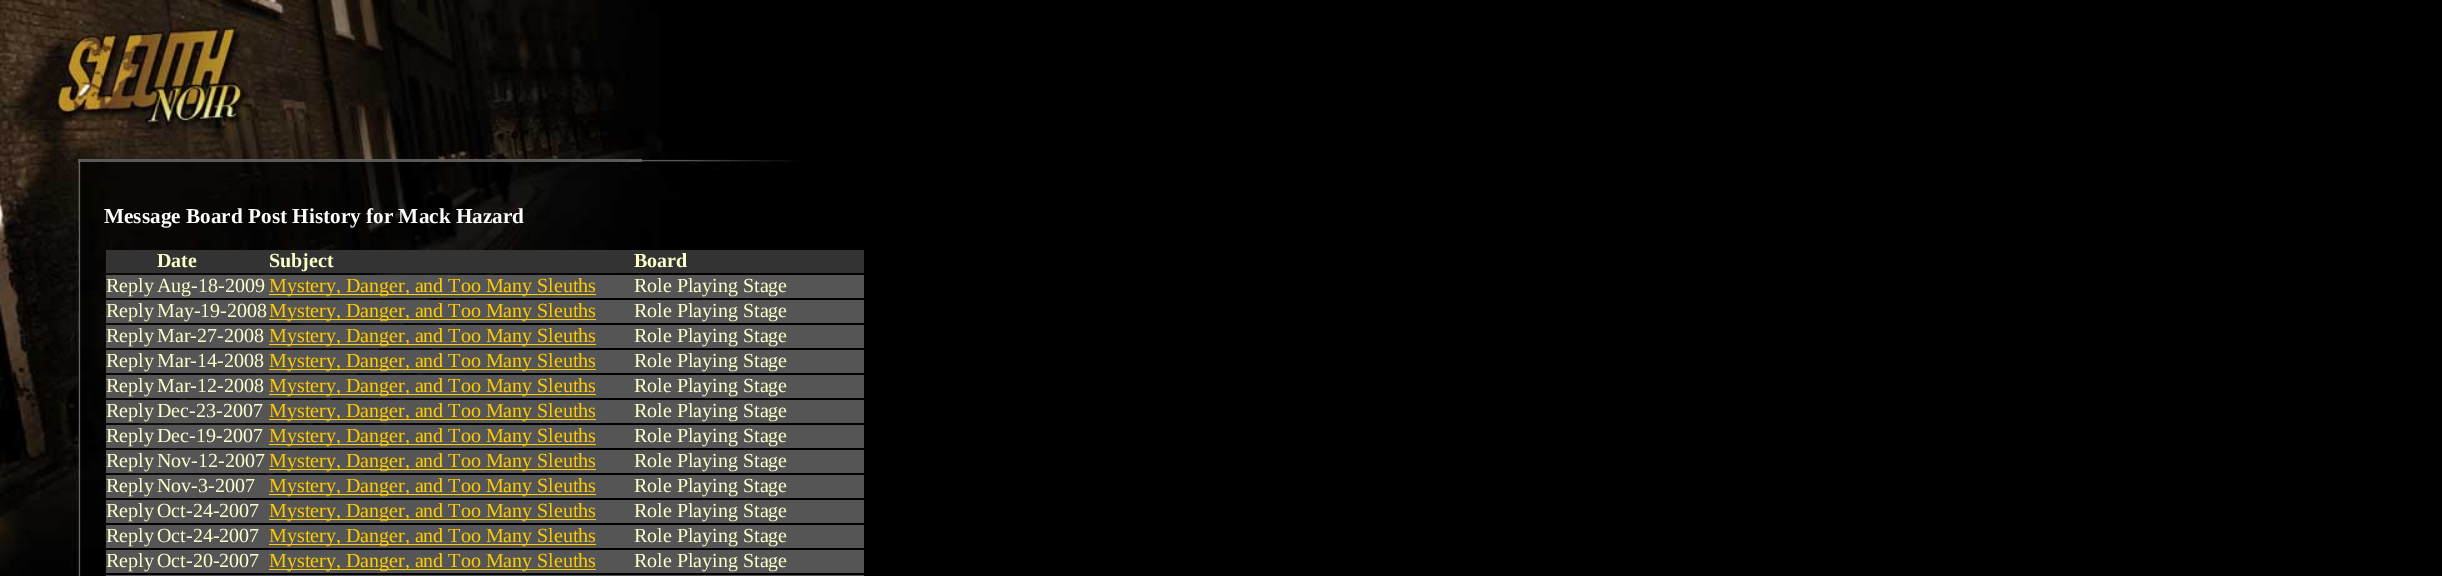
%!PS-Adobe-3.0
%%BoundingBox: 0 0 2442 576
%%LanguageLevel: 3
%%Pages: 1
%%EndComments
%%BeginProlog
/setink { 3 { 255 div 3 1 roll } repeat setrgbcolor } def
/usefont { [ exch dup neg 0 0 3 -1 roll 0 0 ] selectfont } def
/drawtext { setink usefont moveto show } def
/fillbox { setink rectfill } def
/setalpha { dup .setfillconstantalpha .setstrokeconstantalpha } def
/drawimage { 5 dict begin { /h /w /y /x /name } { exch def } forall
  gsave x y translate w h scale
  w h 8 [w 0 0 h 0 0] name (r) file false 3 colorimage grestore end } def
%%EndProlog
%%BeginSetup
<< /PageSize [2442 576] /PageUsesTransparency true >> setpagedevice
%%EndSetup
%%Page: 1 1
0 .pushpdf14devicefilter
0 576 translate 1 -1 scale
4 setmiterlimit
0 0 2442 576 0 0 0 fillbox
(assets/img1.rgb) 0 0 799 576 drawimage
79 161 1 415 102 102 102 fillbox
0.87 setalpha
78 159 564 3 102 102 102 fillbox
1 setalpha
(Message Board Post History for Mack Hazard) 104 223 /LiberationSerif-Bold 21.25 255 255 255 drawtext
106 250 758 23 51 51 51 fillbox
(Date) 157 267 /LiberationSerif-Bold 20 255 255 204 drawtext
(Subject) 269 267 /LiberationSerif-Bold 20 255 255 204 drawtext
(Board) 634 267 /LiberationSerif-Bold 20 255 255 204 drawtext
106 275 758 23 85 85 85 fillbox
(Reply) 106 292 /LiberationSerif-Regular 20 255 255 204 drawtext
(Aug-18-2009) 157 292 /LiberationSerif-Regular 20 255 255 204 drawtext
269 294 327 1 255 204 0 fillbox
(Mystery, Danger, and Too Many Sleuths) 269 292 /LiberationSerif-Regular 20 255 204 0 drawtext
(Role Playing Stage) 634 292 /LiberationSerif-Regular 20 255 255 204 drawtext
106 300 758 23 85 85 85 fillbox
(Reply) 106 317 /LiberationSerif-Regular 20 255 255 204 drawtext
(May-19-2008) 157 317 /LiberationSerif-Regular 20 255 255 204 drawtext
269 319 327 1 255 204 0 fillbox
(Mystery, Danger, and Too Many Sleuths) 269 317 /LiberationSerif-Regular 20 255 204 0 drawtext
(Role Playing Stage) 634 317 /LiberationSerif-Regular 20 255 255 204 drawtext
106 325 758 23 85 85 85 fillbox
(Reply) 106 342 /LiberationSerif-Regular 20 255 255 204 drawtext
(Mar-27-2008) 157 342 /LiberationSerif-Regular 20 255 255 204 drawtext
269 344 327 1 255 204 0 fillbox
(Mystery, Danger, and Too Many Sleuths) 269 342 /LiberationSerif-Regular 20 255 204 0 drawtext
(Role Playing Stage) 634 342 /LiberationSerif-Regular 20 255 255 204 drawtext
106 350 758 23 85 85 85 fillbox
(Reply) 106 367 /LiberationSerif-Regular 20 255 255 204 drawtext
(Mar-14-2008) 157 367 /LiberationSerif-Regular 20 255 255 204 drawtext
269 369 327 1 255 204 0 fillbox
(Mystery, Danger, and Too Many Sleuths) 269 367 /LiberationSerif-Regular 20 255 204 0 drawtext
(Role Playing Stage) 634 367 /LiberationSerif-Regular 20 255 255 204 drawtext
106 375 758 23 85 85 85 fillbox
(Reply) 106 392 /LiberationSerif-Regular 20 255 255 204 drawtext
(Mar-12-2008) 157 392 /LiberationSerif-Regular 20 255 255 204 drawtext
269 394 327 1 255 204 0 fillbox
(Mystery, Danger, and Too Many Sleuths) 269 392 /LiberationSerif-Regular 20 255 204 0 drawtext
(Role Playing Stage) 634 392 /LiberationSerif-Regular 20 255 255 204 drawtext
106 400 758 23 85 85 85 fillbox
(Reply) 106 417 /LiberationSerif-Regular 20 255 255 204 drawtext
(Dec-23-2007) 157 417 /LiberationSerif-Regular 20 255 255 204 drawtext
269 419 327 1 255 204 0 fillbox
(Mystery, Danger, and Too Many Sleuths) 269 417 /LiberationSerif-Regular 20 255 204 0 drawtext
(Role Playing Stage) 634 417 /LiberationSerif-Regular 20 255 255 204 drawtext
106 425 758 23 85 85 85 fillbox
(Reply) 106 442 /LiberationSerif-Regular 20 255 255 204 drawtext
(Dec-19-2007) 157 442 /LiberationSerif-Regular 20 255 255 204 drawtext
269 444 327 1 255 204 0 fillbox
(Mystery, Danger, and Too Many Sleuths) 269 442 /LiberationSerif-Regular 20 255 204 0 drawtext
(Role Playing Stage) 634 442 /LiberationSerif-Regular 20 255 255 204 drawtext
106 450 758 23 85 85 85 fillbox
(Reply) 106 467 /LiberationSerif-Regular 20 255 255 204 drawtext
(Nov-12-2007) 157 467 /LiberationSerif-Regular 20 255 255 204 drawtext
269 469 327 1 255 204 0 fillbox
(Mystery, Danger, and Too Many Sleuths) 269 467 /LiberationSerif-Regular 20 255 204 0 drawtext
(Role Playing Stage) 634 467 /LiberationSerif-Regular 20 255 255 204 drawtext
106 475 758 23 85 85 85 fillbox
(Reply) 106 492 /LiberationSerif-Regular 20 255 255 204 drawtext
(Nov-3-2007) 157 492 /LiberationSerif-Regular 20 255 255 204 drawtext
269 494 327 1 255 204 0 fillbox
(Mystery, Danger, and Too Many Sleuths) 269 492 /LiberationSerif-Regular 20 255 204 0 drawtext
(Role Playing Stage) 634 492 /LiberationSerif-Regular 20 255 255 204 drawtext
106 500 758 23 85 85 85 fillbox
(Reply) 106 517 /LiberationSerif-Regular 20 255 255 204 drawtext
(Oct-24-2007) 157 517 /LiberationSerif-Regular 20 255 255 204 drawtext
269 519 327 1 255 204 0 fillbox
(Mystery, Danger, and Too Many Sleuths) 269 517 /LiberationSerif-Regular 20 255 204 0 drawtext
(Role Playing Stage) 634 517 /LiberationSerif-Regular 20 255 255 204 drawtext
106 525 758 23 85 85 85 fillbox
(Reply) 106 542 /LiberationSerif-Regular 20 255 255 204 drawtext
(Oct-24-2007) 157 542 /LiberationSerif-Regular 20 255 255 204 drawtext
269 544 327 1 255 204 0 fillbox
(Mystery, Danger, and Too Many Sleuths) 269 542 /LiberationSerif-Regular 20 255 204 0 drawtext
(Role Playing Stage) 634 542 /LiberationSerif-Regular 20 255 255 204 drawtext
106 550 758 23 85 85 85 fillbox
(Reply) 106 567 /LiberationSerif-Regular 20 255 255 204 drawtext
(Oct-20-2007) 157 567 /LiberationSerif-Regular 20 255 255 204 drawtext
269 569 327 1 255 204 0 fillbox
(Mystery, Danger, and Too Many Sleuths) 269 567 /LiberationSerif-Regular 20 255 204 0 drawtext
(Role Playing Stage) 634 567 /LiberationSerif-Regular 20 255 255 204 drawtext
106 575 758 1 85 85 85 fillbox
.poppdf14devicefilter showpage
%%EOF
